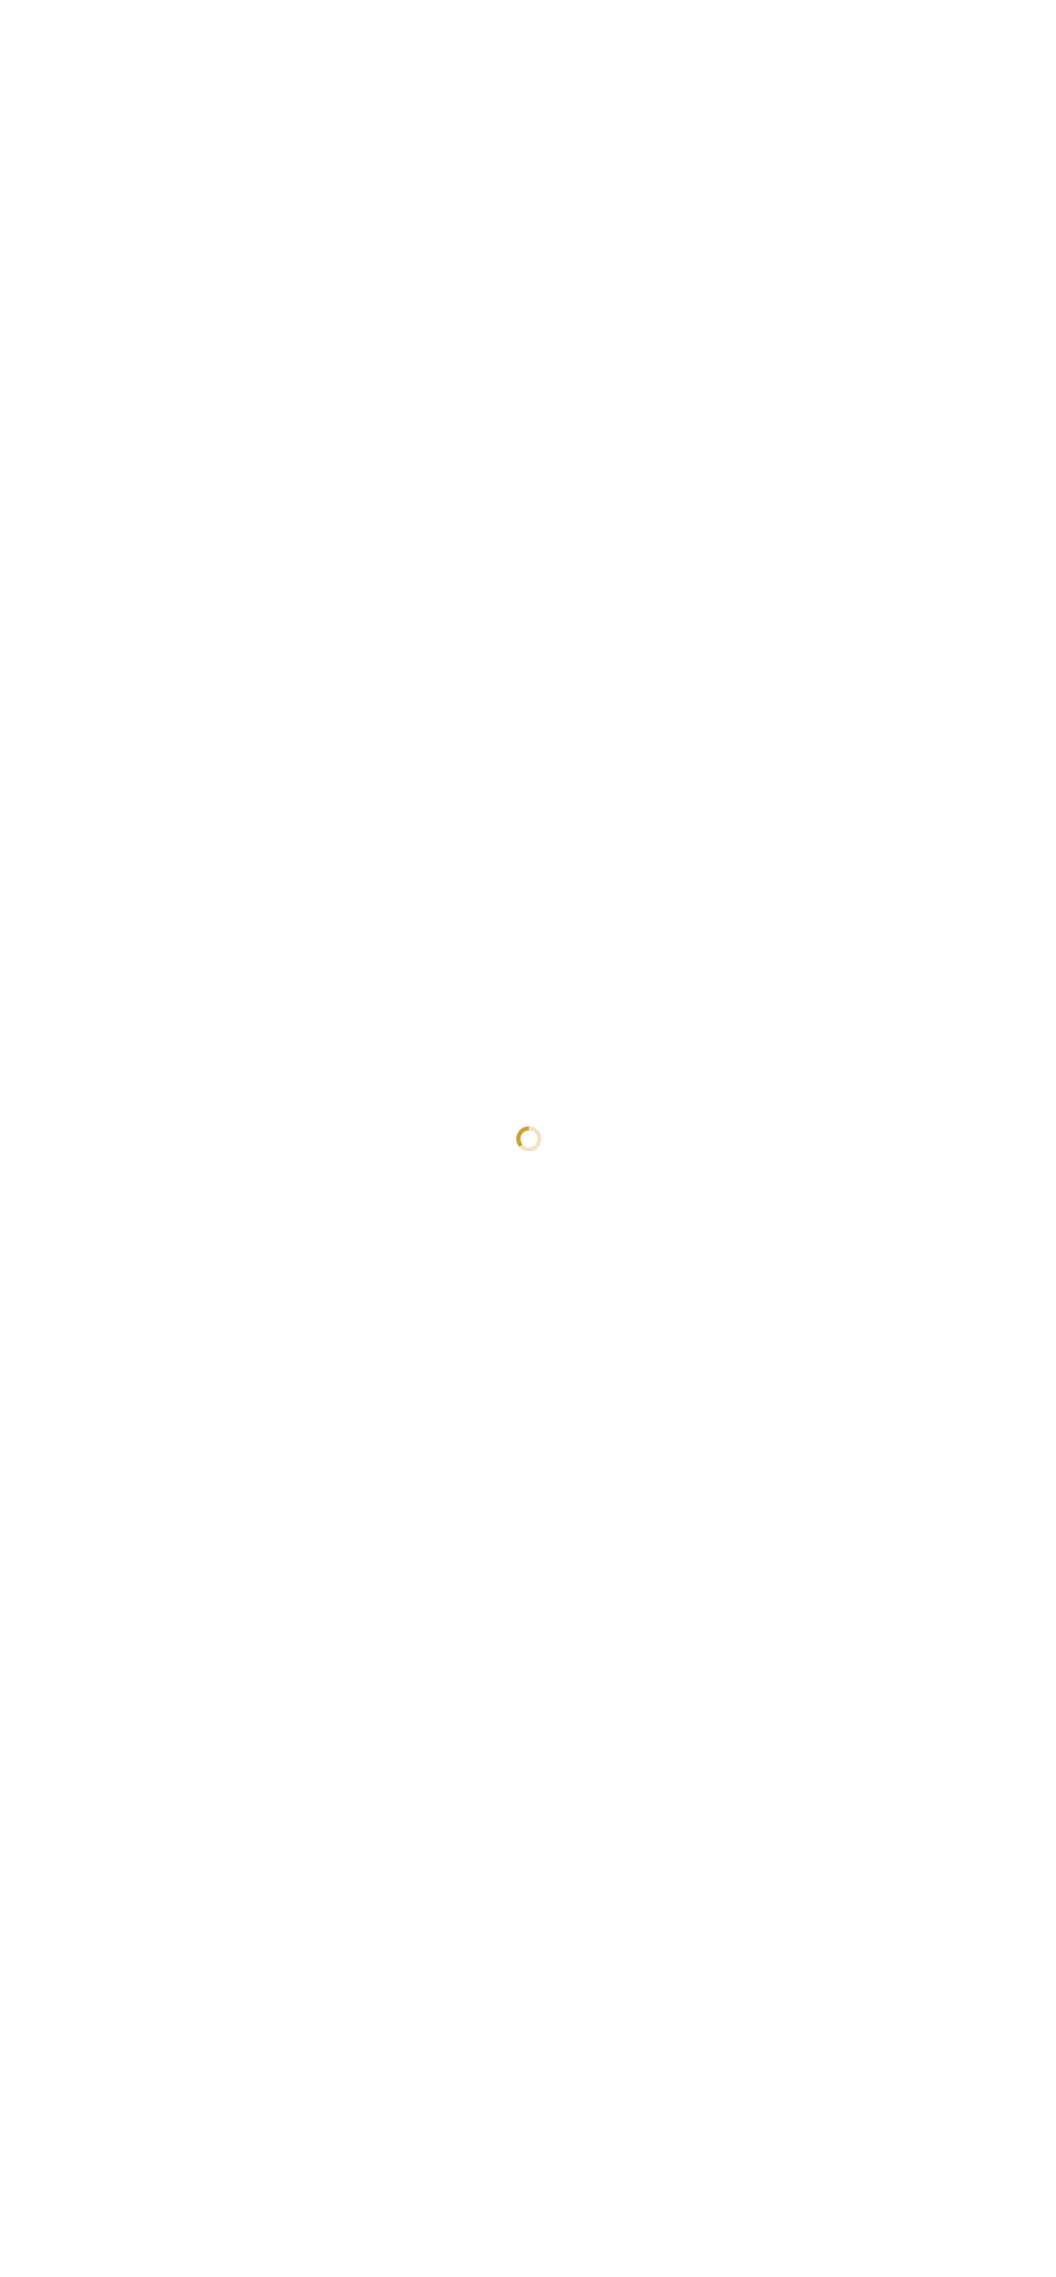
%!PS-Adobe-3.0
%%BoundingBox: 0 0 1056 2277
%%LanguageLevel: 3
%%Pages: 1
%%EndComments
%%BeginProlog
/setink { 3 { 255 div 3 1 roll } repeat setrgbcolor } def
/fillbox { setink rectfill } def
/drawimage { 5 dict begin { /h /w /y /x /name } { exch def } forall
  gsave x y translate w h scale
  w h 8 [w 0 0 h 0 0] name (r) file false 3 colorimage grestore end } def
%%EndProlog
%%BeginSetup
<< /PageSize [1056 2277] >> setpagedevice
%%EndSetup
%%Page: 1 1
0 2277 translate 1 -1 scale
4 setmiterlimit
0 0 1056 2277 255 255 255 fillbox
(assets/img1.rgb) 516 1126 25 25 drawimage
showpage
%%EOF
